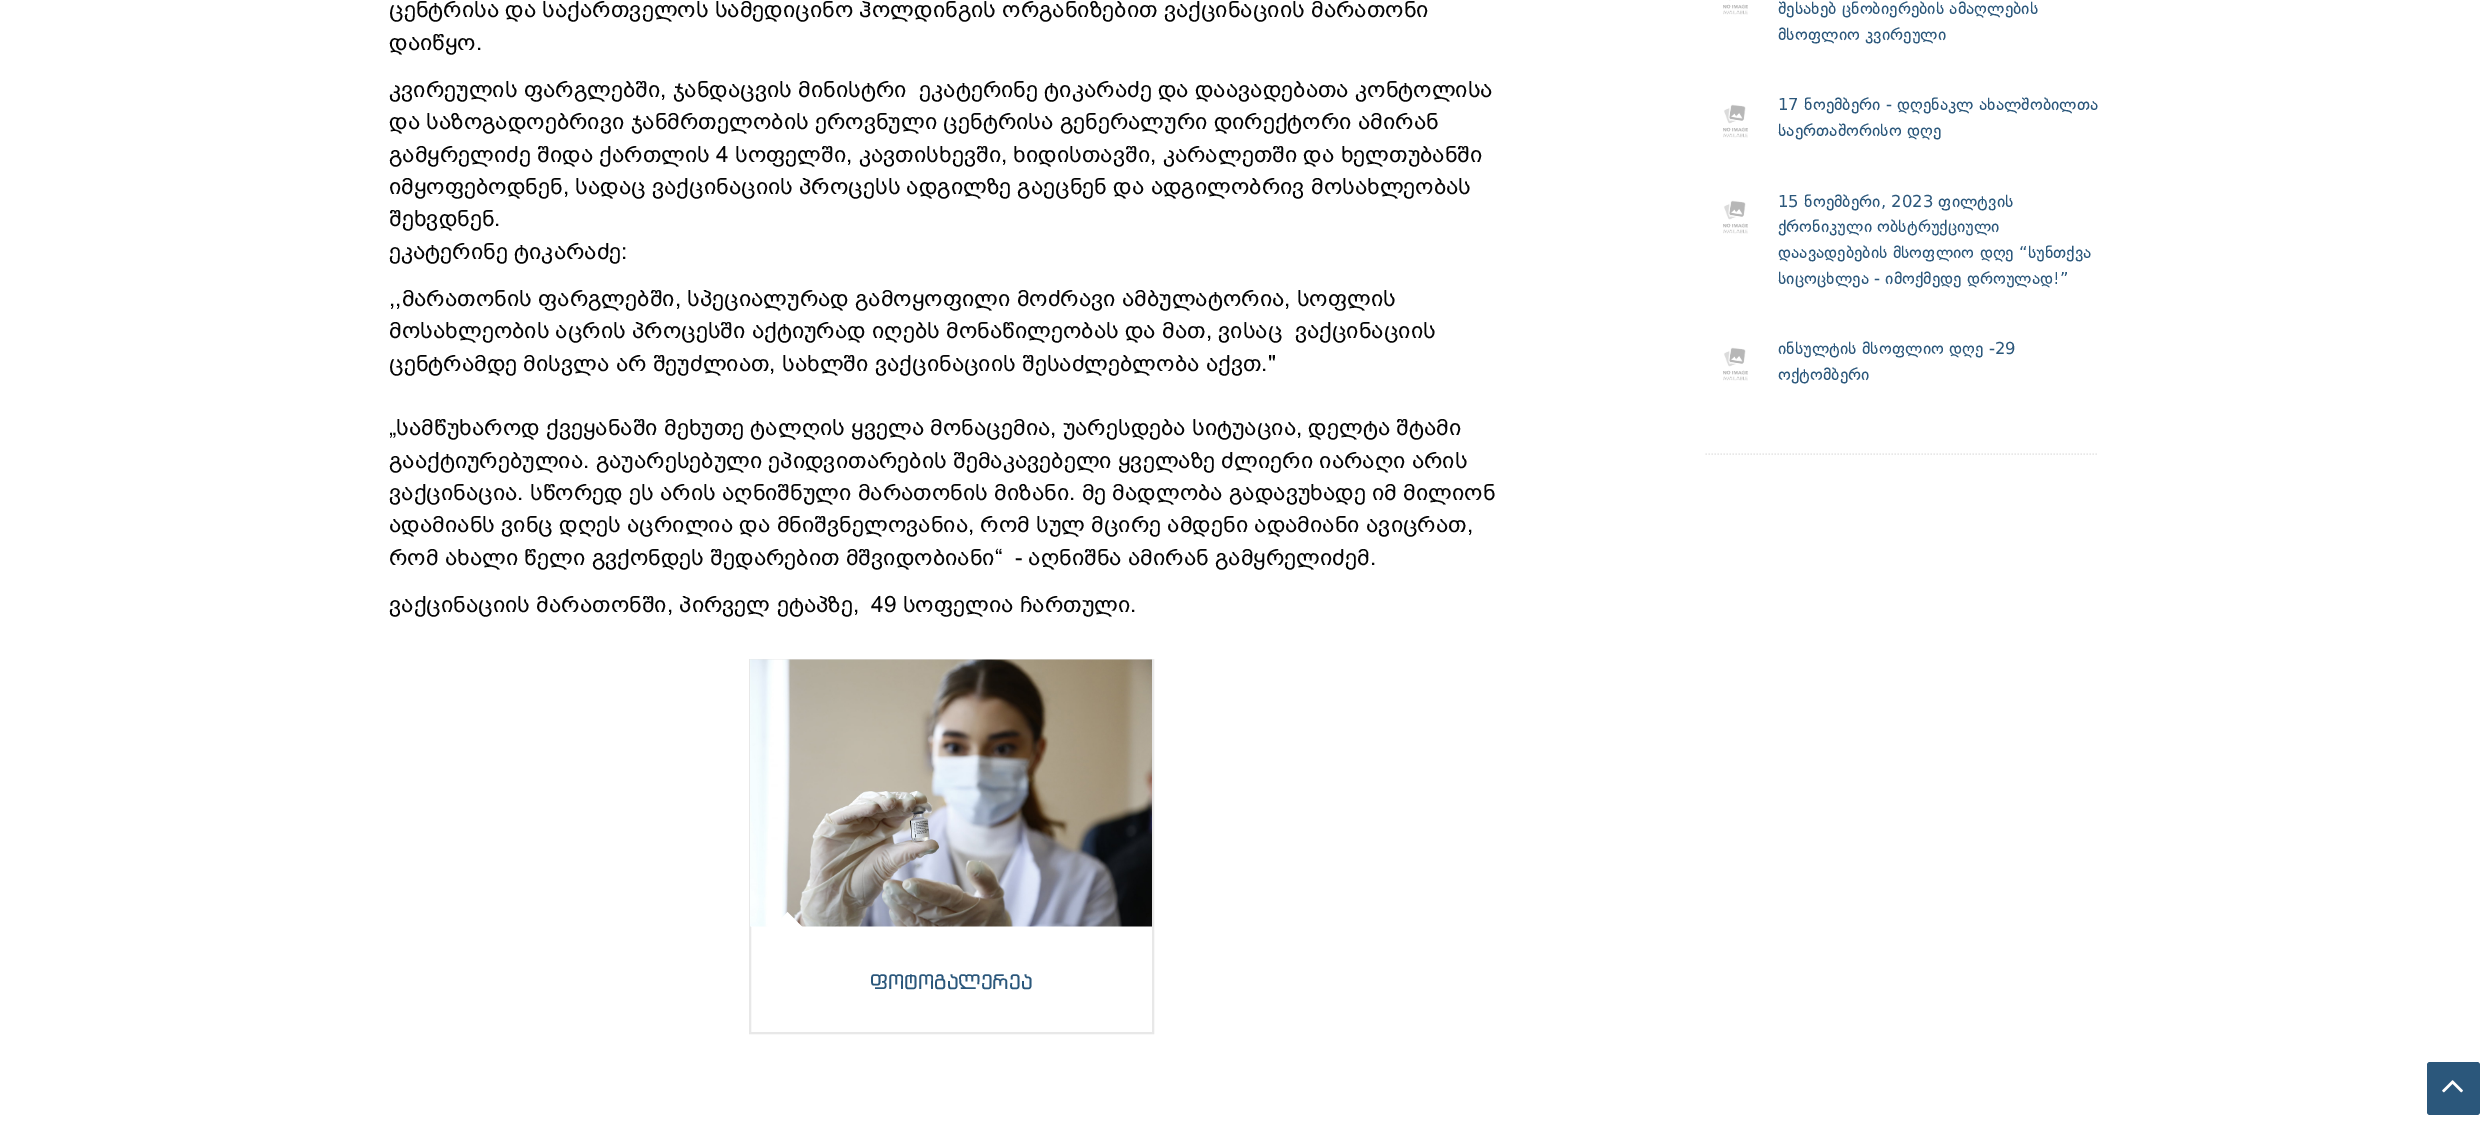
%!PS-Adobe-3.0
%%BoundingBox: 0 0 2487 1121
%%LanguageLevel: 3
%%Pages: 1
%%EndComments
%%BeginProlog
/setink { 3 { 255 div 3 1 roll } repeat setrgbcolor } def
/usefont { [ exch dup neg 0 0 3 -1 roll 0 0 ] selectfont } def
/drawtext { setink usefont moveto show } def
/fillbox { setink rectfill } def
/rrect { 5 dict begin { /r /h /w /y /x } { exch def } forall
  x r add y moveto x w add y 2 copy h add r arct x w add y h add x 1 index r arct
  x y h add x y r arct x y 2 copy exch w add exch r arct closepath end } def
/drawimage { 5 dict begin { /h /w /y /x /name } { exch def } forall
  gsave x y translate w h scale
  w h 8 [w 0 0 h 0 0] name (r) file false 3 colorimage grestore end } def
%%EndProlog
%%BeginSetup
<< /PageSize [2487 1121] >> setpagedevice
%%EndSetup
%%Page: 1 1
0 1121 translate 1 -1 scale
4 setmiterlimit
0 0 2487 1121 255 255 255 fillbox
(ცენტრისა და საქართველოს სამედიცინო ჰოლდინგის ორგანიზებით ვაქცინაციის მარათონი) 389 17 /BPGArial-Regular 22.5 5 5 5 drawtext
(დაიწყო.) 389 50 /BPGArial-Regular 22.5 5 5 5 drawtext
(კვირეულის ფარგლებში, ჯანდაცვის მინისტრი  ეკატერინე ტიკარაძე და დაავადებათა კონტოლისა) 389 97 /BPGArial-Regular 22.5 5 5 5 drawtext
(და საზოგადოებრივი ჯანმრთელობის ეროვნული ცენტრისა გენერალური დირექტორი ამირან) 389 129 /BPGArial-Regular 22.5 5 5 5 drawtext
(გამყრელიძე შიდა ქართლის 4 სოფელში, კავთისხევში, ხიდისთავში, კარალეთში და ხელთუბანში) 389 162 /BPGArial-Regular 22.5 5 5 5 drawtext
(იმყოფებოდნენ, სადაც ვაქცინაციის პროცესს ადგილზე გაეცნენ და ადგილობრივ მოსახლეობას) 389 194 /BPGArial-Regular 22.5 5 5 5 drawtext
(შეხვდნენ.) 389 226 /BPGArial-Regular 22.5 5 5 5 drawtext
(ეკატერინე ტიკარაძე:) 389 259 /BPGArial-Regular 22.5 5 5 5 drawtext
(,,მარათონის ფარგლებში, სპეციალურად გამოყოფილი მოძრავი ამბულატორია, სოფლის) 389 306 /BPGArial-Regular 22.5 5 5 5 drawtext
(მოსახლეობის აცრის პროცესში აქტიურად იღებს მონაწილეობას და მათ, ვისაც  ვაქცინაციის) 389 338 /BPGArial-Regular 22.5 5 5 5 drawtext
(ცენტრამდე მისვლა არ შეუძლიათ, სახლში ვაქცინაციის შესაძლებლობა აქვთ.") 389 371 /BPGArial-Regular 22.5 5 5 5 drawtext
(„სამწუხაროდ ქვეყანაში მეხუთე ტალღის ყველა მონაცემია, უარესდება სიტუაცია, დელტა შტამი) 389 435 /BPGArial-Regular 22.5 5 5 5 drawtext
(გააქტიურებულია. გაუარესებული ეპიდვითარების შემაკავებელი ყველაზე ძლიერი იარაღი არის) 389 468 /BPGArial-Regular 22.5 5 5 5 drawtext
(ვაქცინაცია. სწორედ ეს არის აღნიშნული მარათონის მიზანი. მე მადლობა გადავუხადე იმ მილიონ) 389 500 /BPGArial-Regular 22.5 5 5 5 drawtext
(ადამიანს ვინც დღეს აცრილია და მნიშვნელოვანია, რომ სულ მცირე ამდენი ადამიანი ავიცრათ,) 389 532 /BPGArial-Regular 22.5 5 5 5 drawtext
(რომ ახალი წელი გვქონდეს შედარებით მშვიდობიანი“  - აღნიშნა ამირან გამყრელიძემ.) 389 565 /BPGArial-Regular 22.5 5 5 5 drawtext
(ვაქცინაციის მარათონში, პირველ ეტაპზე,  49 სოფელია ჩართული.) 389 612 /BPGArial-Regular 22.5 5 5 5 drawtext
232 232 232 setink
2 setlinewidth
750 660 403 373 rectstroke
(assets/img1.rgb) 750 659 402 268 drawimage
255 255 255 setink
802.5 927 moveto 772.5 927 lineto 787.5 912 lineto closepath fill
(ფოტოგალერეა) 870 989 /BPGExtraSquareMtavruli-Regular 20.25 43 87 123 drawtext
232 232 232 setink
1.5 setlinewidth
[1.5 1.5] 0 setdash
1705.5 454 moveto 2098.5 454 lineto stroke
(assets/img2.rgb) 1723 0 25 15 drawimage
(შესახებ ცნობიერების ამაღლების) 1778 14 /DejaVuSans-Regular 16.5 43 87 123 drawtext
(მსოფლიო კვირეული) 1778 40 /DejaVuSans-Regular 16.5 43 87 123 drawtext
(assets/img3.rgb) 1723 104 25 34 drawimage
(17 ნოემბერი - დღენაკლ ახალშობილთა) 1778 110 /DejaVuSans-Regular 16.5 43 87 123 drawtext
(საერთაშორისო დღე) 1778 136 /DejaVuSans-Regular 16.5 43 87 123 drawtext
(assets/img4.rgb) 1723 200 25 34 drawimage
(15 ნოემბერი, 2023 ფილტვის) 1778 207 /DejaVuSans-Regular 16.5 43 87 123 drawtext
(ქრონიკული ობსტრუქციული) 1778 232 /DejaVuSans-Regular 16.5 43 87 123 drawtext
(დაავადებების მსოფლიო დღე “სუნთქვა) 1778 258 /DejaVuSans-Regular 16.5 43 87 123 drawtext
(სიცოცხლეა - იმოქმედე დროულად!”) 1778 284 /DejaVuSans-Regular 16.5 43 87 123 drawtext
(assets/img4.rgb) 1723 347 25 34 drawimage
(ინსულტის მსოფლიო დღე -29) 1778 354 /DejaVuSans-Regular 16.5 43 87 123 drawtext
(ოქტომბერი) 1778 380 /DejaVuSans-Regular 16.5 43 87 123 drawtext
2427 1062 53 53 3 rrect fill
(assets/img5.rgb) 2442 1080 21 13 drawimage
showpage
%%EOF
